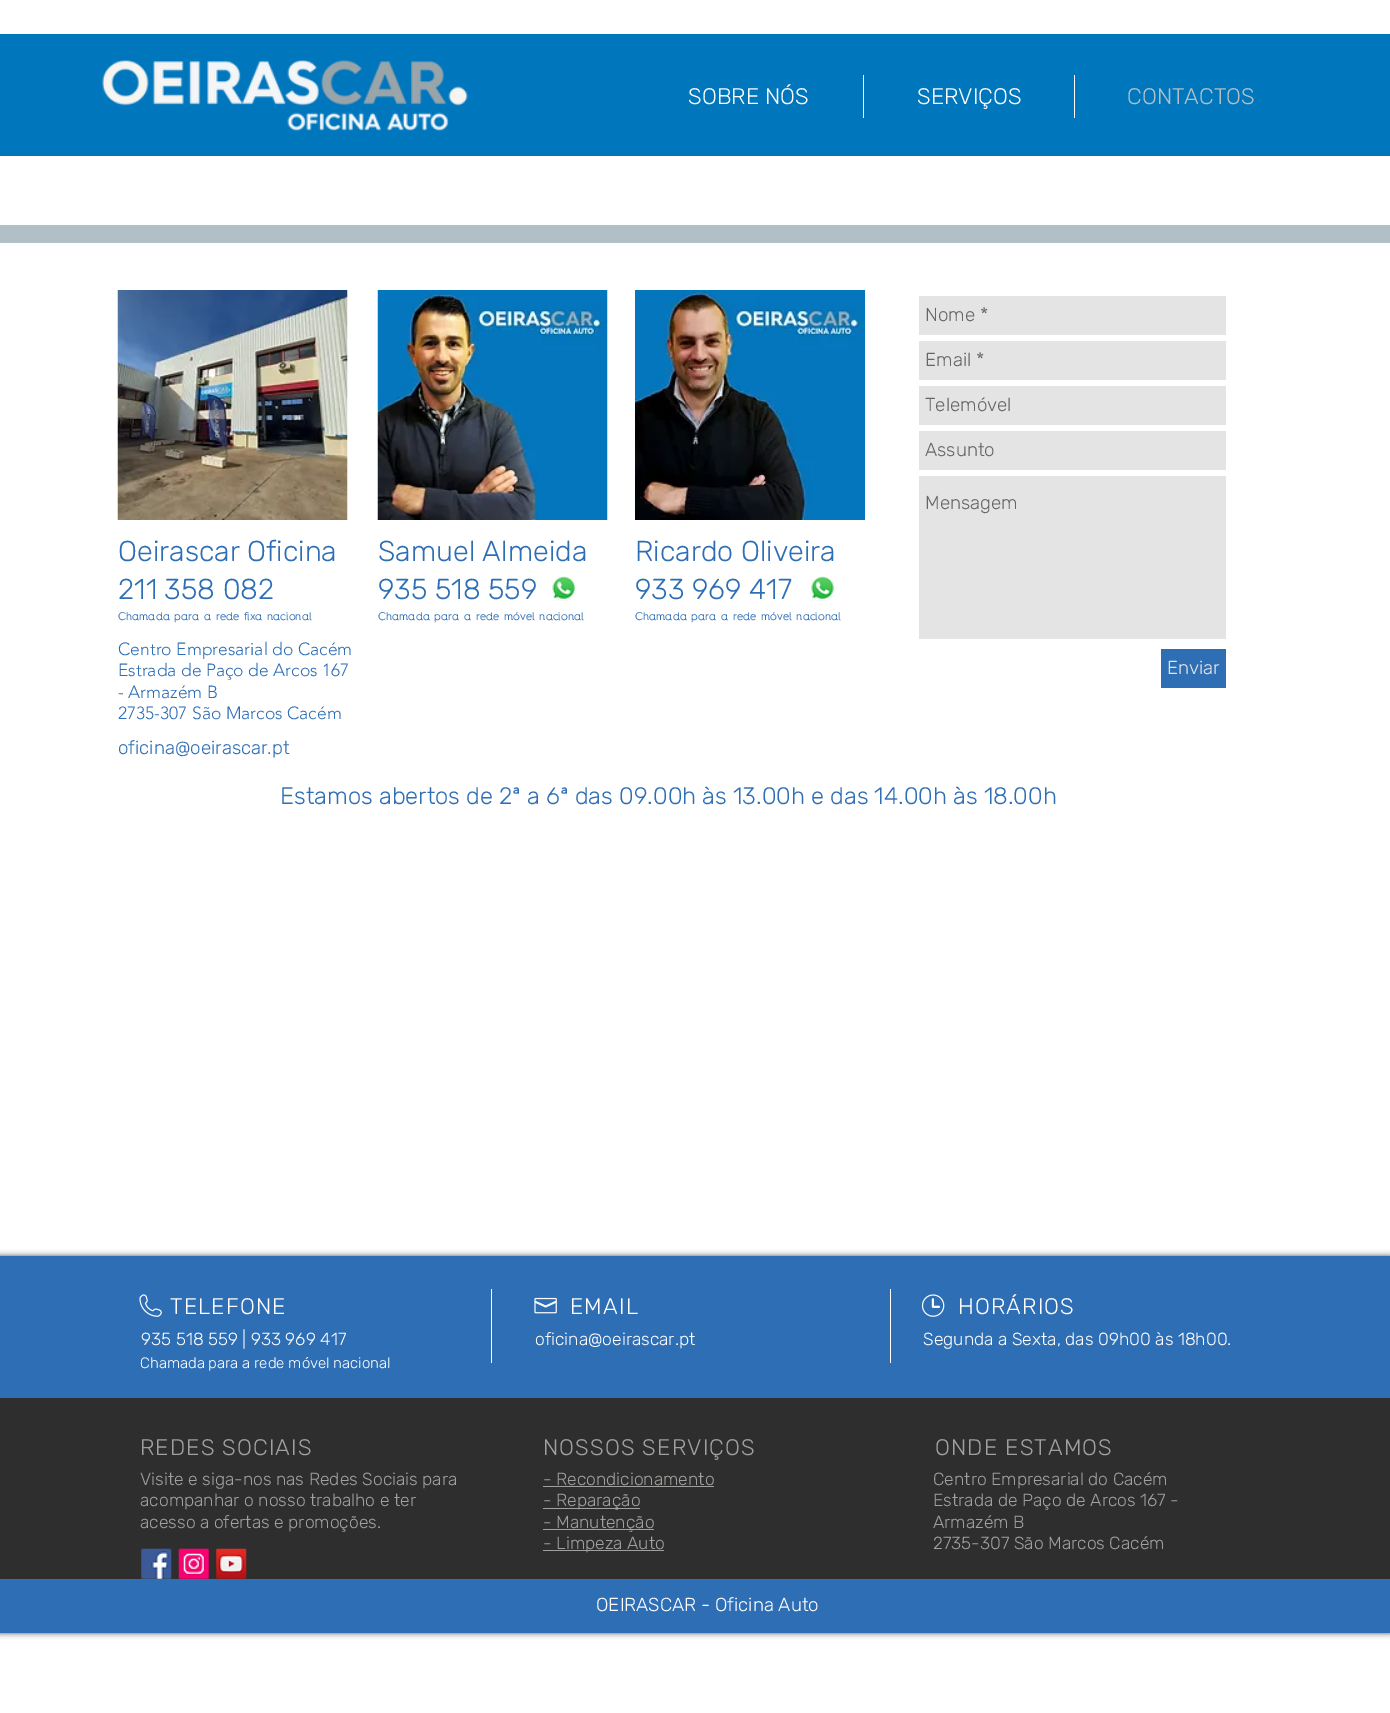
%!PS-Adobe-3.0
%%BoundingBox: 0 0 1390 1713
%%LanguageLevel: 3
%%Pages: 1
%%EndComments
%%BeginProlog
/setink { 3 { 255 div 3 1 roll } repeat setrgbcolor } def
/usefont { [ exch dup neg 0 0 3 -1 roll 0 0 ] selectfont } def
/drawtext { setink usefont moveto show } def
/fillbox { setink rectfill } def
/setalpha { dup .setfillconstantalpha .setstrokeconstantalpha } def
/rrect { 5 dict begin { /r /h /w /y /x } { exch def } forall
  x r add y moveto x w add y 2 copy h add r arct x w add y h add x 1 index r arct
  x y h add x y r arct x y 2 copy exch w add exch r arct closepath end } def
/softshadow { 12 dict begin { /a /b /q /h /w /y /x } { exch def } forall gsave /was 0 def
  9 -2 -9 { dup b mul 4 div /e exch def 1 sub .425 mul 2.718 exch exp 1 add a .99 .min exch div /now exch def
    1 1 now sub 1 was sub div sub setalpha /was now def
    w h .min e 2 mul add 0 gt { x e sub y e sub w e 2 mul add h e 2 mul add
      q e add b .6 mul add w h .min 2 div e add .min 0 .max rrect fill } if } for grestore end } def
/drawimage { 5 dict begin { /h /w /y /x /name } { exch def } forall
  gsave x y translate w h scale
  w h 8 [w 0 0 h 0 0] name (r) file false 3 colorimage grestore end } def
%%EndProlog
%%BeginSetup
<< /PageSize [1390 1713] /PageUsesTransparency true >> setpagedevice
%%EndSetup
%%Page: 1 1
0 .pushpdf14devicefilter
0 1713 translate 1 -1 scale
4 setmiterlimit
0 0 1390 1713 255 255 255 fillbox
0 34 1390 122 0 118 189 fillbox
(assets/img1.rgb) 102 60 366 72 drawimage
(SOBRE NÓS) 688 104 /Rubik-Light 22.5 255 255 255 drawtext
863 75 1 43 255 255 255 fillbox
(SERVIÇOS) 917 104 /Rubik-Light 22.5 255 255 255 drawtext
1074 75 1 43 255 255 255 fillbox
(CONTACTOS) 1127 104 /Rubik-Light 22.5 177 192 199 drawtext
0 225 1390 18 177 192 199 fillbox
(assets/img2.rgb) 117 290 231 230 drawimage
(assets/img3.rgb) 377 290 231 230 drawimage
(assets/img4.rgb) 635 290 230 230 drawimage
919 296 307 39 228 228 228 fillbox
(Nome *) 925 321 /Rubik-Light 18.75 102 102 102 drawtext
919 341 307 39 228 228 228 fillbox
(Email *) 925 366 /Rubik-Light 18.75 102 102 102 drawtext
919 386 307 39 228 228 228 fillbox
(Telemóvel) 925 411 /Rubik-Light 18.75 102 102 102 drawtext
919 431 307 39 228 228 228 fillbox
(Assunto) 925 456 /Rubik-Light 18.75 102 102 102 drawtext
919 476 307 163 228 228 228 fillbox
(Mensagem) 925 509 /Rubik-Light 18.75 102 102 102 drawtext
1161 649 65 39 46 110 181 fillbox
(Enviar) 1167 674 /Rubik-Light 18.75 228 228 228 drawtext
(Oeirascar Oficina) 118 561 /Rubik-Light 28.75 46 110 181 drawtext
(211 358 082) 118 599 /Rubik-Light 28.75 46 110 181 drawtext
(Samuel Almeida) 378 561 /Rubik-Light 28.75 46 110 181 drawtext
(935 518 559) 378 599 /Rubik-Light 28.75 46 110 181 drawtext
(Ricardo Oliveira) 635 561 /Rubik-Light 28.75 46 110 181 drawtext
(933 969 417) 635 599 /Rubik-Light 28.75 46 110 181 drawtext
(assets/img5.rgb) 551 576 25 25 drawimage
(assets/img6.rgb) 810 576 25 25 drawimage
(Chamada para a rede fixa nacional) 118 620 /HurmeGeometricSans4-Regular 11.25 46 110 181 drawtext
(Chamada para a rede móvel nacional) 378 620 /HurmeGeometricSans4-Regular 11.25 46 110 181 drawtext
(Chamada para a rede móvel nacional) 635 620 /HurmeGeometricSans4-Regular 11.25 46 110 181 drawtext
(Centro Empresarial do Cacém) 118 655 /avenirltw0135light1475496-Light 17.5 46 110 181 drawtext
(Estrada de Paço de Arcos 167) 118 676 /avenirltw0135light1475496-Light 17.5 46 110 181 drawtext
(- Armazém B) 118 698 /avenirltw0135light1475496-Light 17.5 46 110 181 drawtext
(2735-307 São Marcos Cacém) 118 719 /avenirltw0135light1475496-Light 17.5 46 110 181 drawtext
(oficina@oeirascar.pt) 118 754 /Rubik-Light 18.75 46 110 181 drawtext
(Estamos abertos de 2ª a 6ª das 09.00h às 13.00h e das 14.00h às 18.00h) 280 804 /Rubik-Light 23.75 46 110 181 drawtext
0 0 0 setink
0 1256 1390 377 0 3 0.7 softshadow
0 1398 1390 181 47 46 46 fillbox
0 1256 1390 142 46 110 181 fillbox
(assets/img7.rgb) 139 1294 23 23 drawimage
/Rubik-Light 22.5 usefont
255 255 255 setink
170 1314 moveto 1.1 0 (TELEFONE) ashow
491 1289 1 74 255 255 255 fillbox
(assets/img8.rgb) 534 1297 23 17 drawimage
570 1314 moveto 1.1 0 (EMAIL) ashow
890 1289 1 74 255 255 255 fillbox
(assets/img9.rgb) 921 1294 24 23 drawimage
958 1314 moveto 1.1 0 (HORÁRIOS) ashow
(935 518 559 | 933 969 417) 141 1345 /Rubik-Light 17.5 255 255 255 drawtext
(oficina@oeirascar.pt) 535 1345 /Rubik-Light 17.5 255 255 255 drawtext
(Segunda a Sexta, das 09h00 às 18h00.) 923 1345 /Rubik-Light 17.5 255 255 255 drawtext
(Chamada para a rede móvel nacional) 140 1368 /Rubik-Light 15 255 255 255 drawtext
/Rubik-Light 22.5 usefont
160 160 159 setink
140 1455 moveto 1.1 0 (REDES SOCIAIS) ashow
543 1455 moveto 1.1 0 (NOSSOS SERVIÇOS) ashow
935 1455 moveto 1.1 0 (ONDE ESTAMOS) ashow
(Visite e siga-nos nas Redes Sociais para) 140 1485 /Rubik-Light 17.5 160 160 159 drawtext
(acompanhar o nosso trabalho e ter) 140 1506 /Rubik-Light 17.5 160 160 159 drawtext
(acesso a ofertas e promoções.) 140 1528 /Rubik-Light 17.5 160 160 159 drawtext
(- Recondicionamento) 543 1485 /Rubik-Light 17.5 160 160 159 drawtext
543 1486 171 1 160 160 159 fillbox
543 1508 97 1 160 160 159 fillbox
(- Reparação) 543 1506 /Rubik-Light 17.5 160 160 159 drawtext
543 1529 111 1 160 160 159 fillbox
(- Manutenção) 543 1528 /Rubik-Light 17.5 160 160 159 drawtext
543 1550 121 1 160 160 159 fillbox
(- Limpeza Auto) 543 1549 /Rubik-Light 17.5 160 160 159 drawtext
(Centro Empresarial do Cacém) 933 1485 /Rubik-Light 17.5 160 160 159 drawtext
(Estrada de Paço de Arcos 167 -) 933 1506 /Rubik-Light 17.5 160 160 159 drawtext
(Armazém B) 933 1528 /Rubik-Light 17.5 160 160 159 drawtext
(2735-307 São Marcos Cacém) 933 1549 /Rubik-Light 17.5 160 160 159 drawtext
(assets/img10.rgb) 141 1548 31 31 drawimage
(assets/img11.rgb) 178 1548 31 31 drawimage
(assets/img12.rgb) 216 1548 31 31 drawimage
0 1579 1390 54 46 110 181 fillbox
(OEIRASCAR - Oficina Auto) 596 1611 /Rubik-Light 18.75 255 255 255 drawtext
.poppdf14devicefilter showpage
%%EOF
